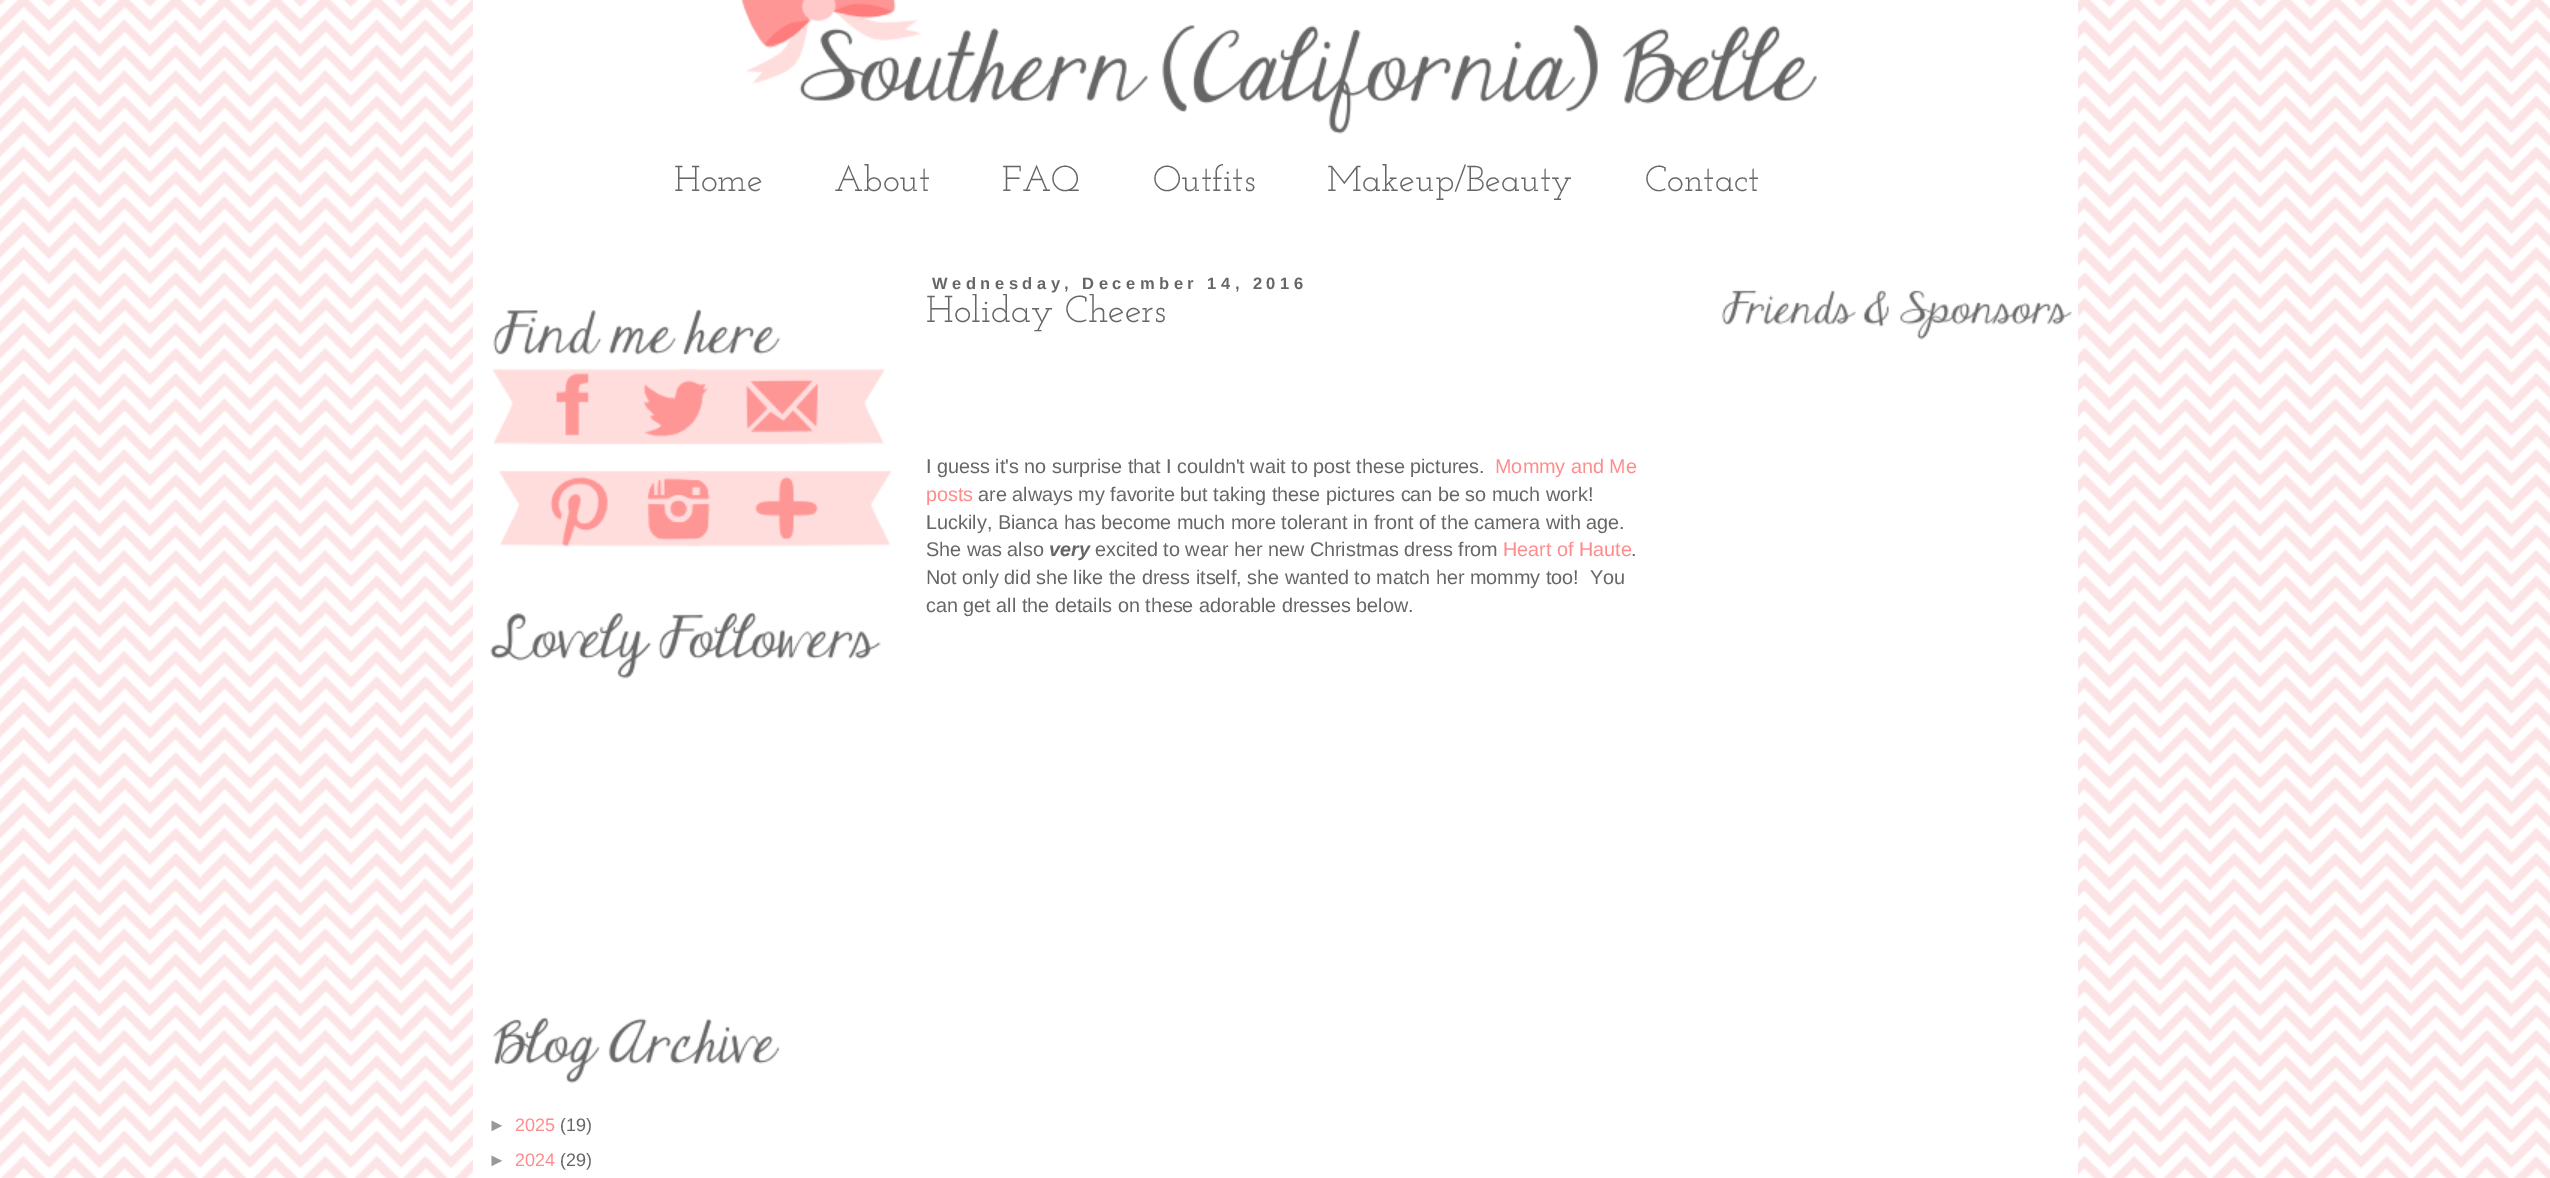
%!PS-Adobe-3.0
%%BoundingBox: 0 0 2550 1178
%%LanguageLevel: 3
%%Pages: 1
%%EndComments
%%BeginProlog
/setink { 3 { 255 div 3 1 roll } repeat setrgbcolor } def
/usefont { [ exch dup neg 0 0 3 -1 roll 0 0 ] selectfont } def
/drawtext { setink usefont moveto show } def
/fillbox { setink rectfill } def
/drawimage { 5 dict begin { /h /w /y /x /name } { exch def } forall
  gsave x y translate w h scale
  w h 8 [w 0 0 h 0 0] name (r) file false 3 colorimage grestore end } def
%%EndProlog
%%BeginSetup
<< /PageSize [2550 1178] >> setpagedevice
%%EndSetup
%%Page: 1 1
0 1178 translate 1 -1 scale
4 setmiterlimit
0 0 2550 1178 255 255 255 fillbox
(assets/img1.rgb) 0 468 2550 710 drawimage
(assets/img2.rgb) 0 0 2550 468 drawimage
473 0 1605 1178 255 255 255 fillbox
(assets/img3.rgb) 741 0 1076 134 drawimage
(Home) 674 191 /JosefinSlab-Thin 36 102 102 102 drawtext
(About) 834 191 /JosefinSlab-Thin 36 102 102 102 drawtext
(FAQ) 1002 191 /JosefinSlab-Thin 36 102 102 102 drawtext
(Outfits) 1153 191 /JosefinSlab-Thin 36 102 102 102 drawtext
(Makeup/Beauty) 1327 191 /JosefinSlab-Thin 36 102 102 102 drawtext
(Contact) 1645 191 /JosefinSlab-Thin 36 102 102 102 drawtext
/LiberationSans-Bold 16.5 usefont
932 289 moveto 4.5 0 (Wednesday, December 14, 2016) ashow
(Holiday Cheers) 926 322 /JosefinSlab-Thin 37.5 102 102 102 drawtext
(I guess it's no surprise that I couldn't wait to post these pictures.) 926 473 /LiberationSans-Regular 19.8 102 102 102 drawtext
(Mommy and Me) 1495 473 /LiberationSans-Regular 19.8 255 140 140 drawtext
(posts) 926 501 /LiberationSans-Regular 19.8 255 140 140 drawtext
(are always my favorite but taking these pictures can be so much work!) 978 501 /LiberationSans-Regular 19.8 102 102 102 drawtext
(Luckily, Bianca has become much more tolerant in front of the camera with age.) 926 529 /LiberationSans-Regular 19.8 102 102 102 drawtext
(She was also) 926 556 /LiberationSans-Regular 19.8 102 102 102 drawtext
(very) 1049 556 /LiberationSans-BoldItalic 19.8 102 102 102 drawtext
(excited to wear her new Christmas dress from) 1095 556 /LiberationSans-Regular 19.8 102 102 102 drawtext
(Heart of Haute) 1503 556 /LiberationSans-Regular 19.8 255 140 140 drawtext
(.) 1631 556 /LiberationSans-Regular 19.8 102 102 102 drawtext
(Not only did she like the dress itself, she wanted to match her mommy too!  You) 926 584 /LiberationSans-Regular 19.8 102 102 102 drawtext
(can get all the details on these adorable dresses below.) 926 612 /LiberationSans-Regular 19.8 102 102 102 drawtext
(assets/img4.rgb) 1721 289 351 51 drawimage
(assets/img5.rgb) 492 308 400 239 drawimage
(assets/img6.rgb) 490 612 391 67 drawimage
(assets/img7.rgb) 493 1017 287 67 drawimage
(►) 488 1131 /LiberationSans-Regular 18 153 153 153 drawtext
(2025) 515 1131 /LiberationSans-Regular 18 255 140 140 drawtext
(\(19\)) 560 1131 /LiberationSans-Regular 18 102 102 102 drawtext
(►) 488 1166 /LiberationSans-Regular 18 153 153 153 drawtext
(2024) 515 1166 /LiberationSans-Regular 18 255 140 140 drawtext
(\(29\)) 560 1166 /LiberationSans-Regular 18 102 102 102 drawtext
showpage
%%EOF
